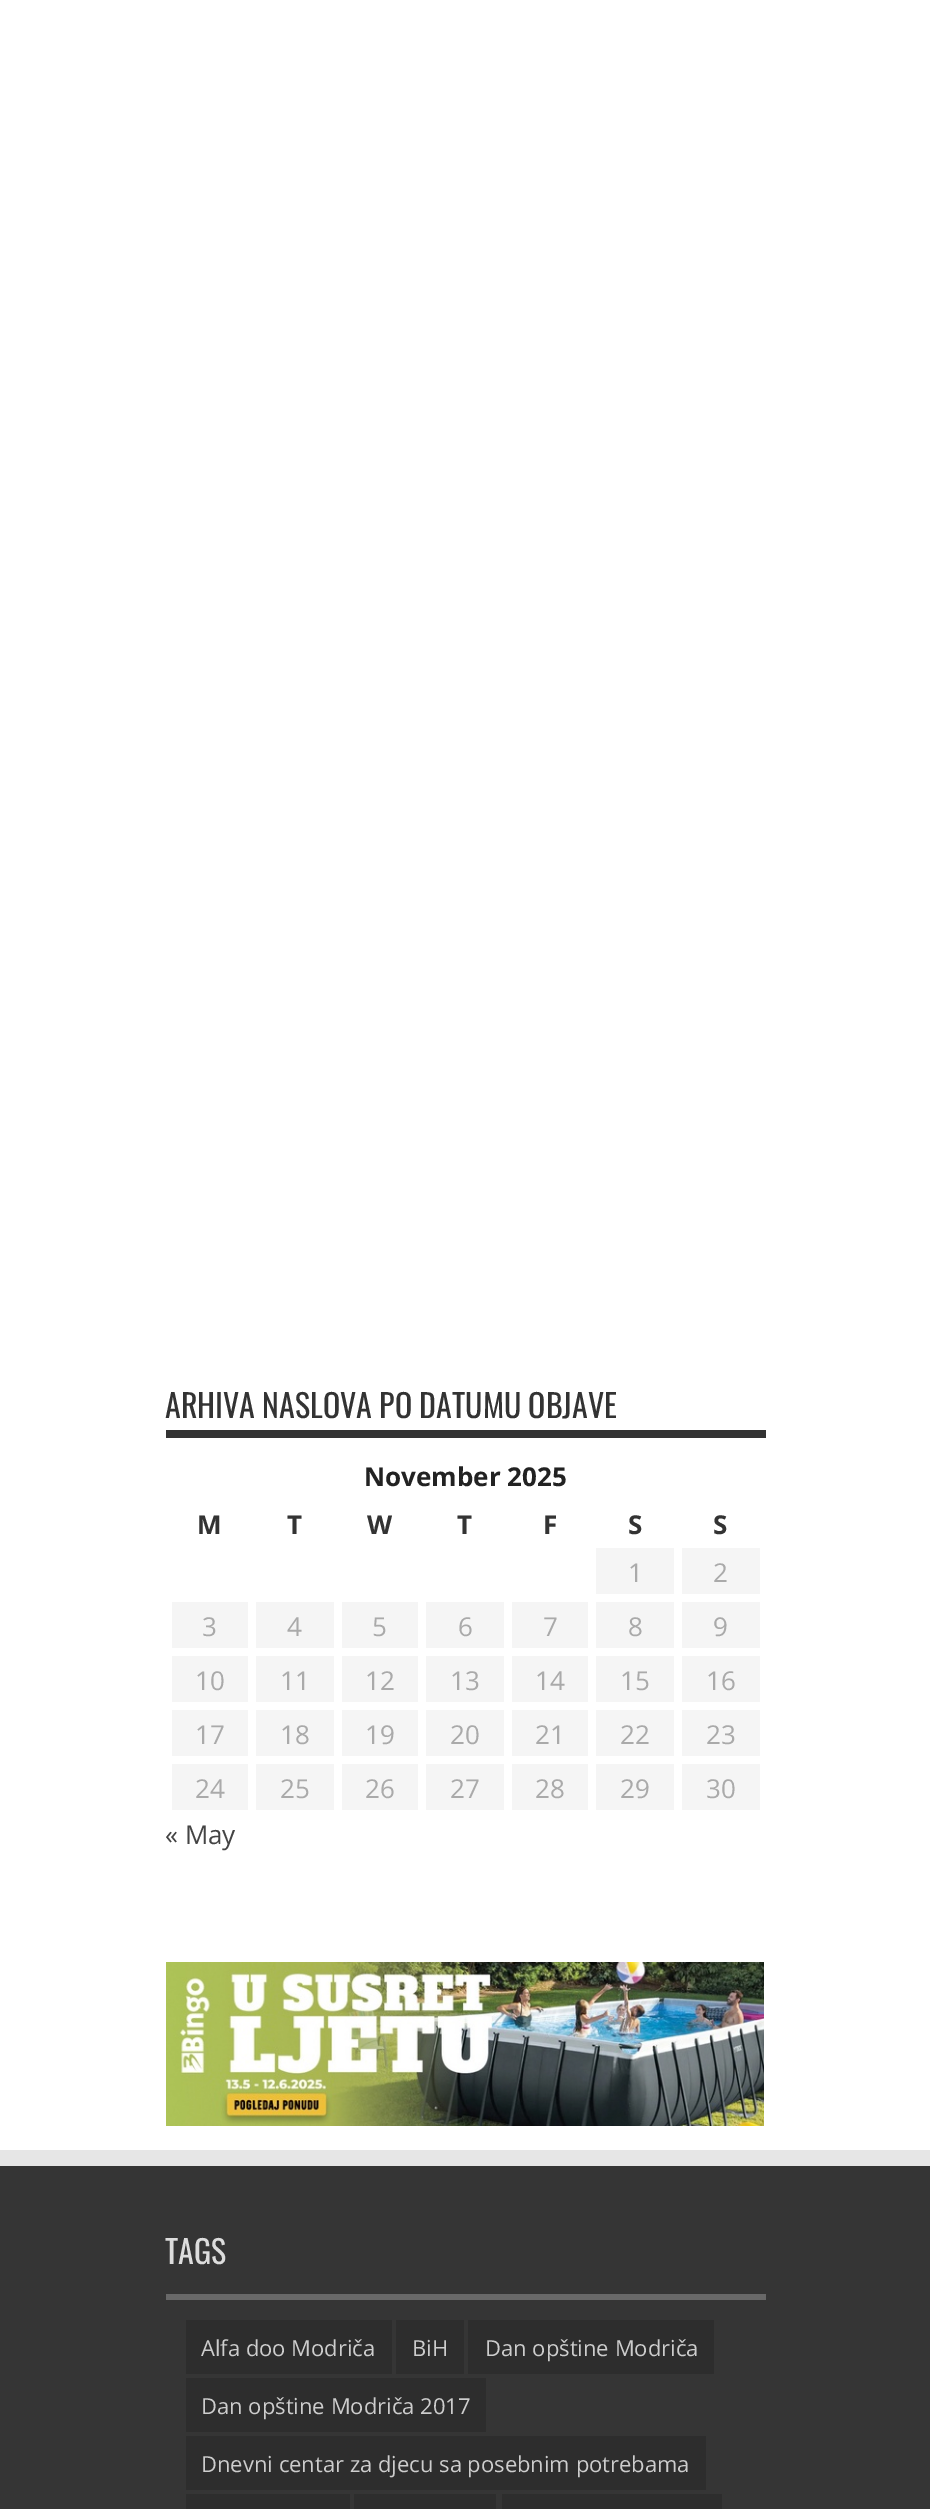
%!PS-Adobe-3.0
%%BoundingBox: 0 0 930 2509
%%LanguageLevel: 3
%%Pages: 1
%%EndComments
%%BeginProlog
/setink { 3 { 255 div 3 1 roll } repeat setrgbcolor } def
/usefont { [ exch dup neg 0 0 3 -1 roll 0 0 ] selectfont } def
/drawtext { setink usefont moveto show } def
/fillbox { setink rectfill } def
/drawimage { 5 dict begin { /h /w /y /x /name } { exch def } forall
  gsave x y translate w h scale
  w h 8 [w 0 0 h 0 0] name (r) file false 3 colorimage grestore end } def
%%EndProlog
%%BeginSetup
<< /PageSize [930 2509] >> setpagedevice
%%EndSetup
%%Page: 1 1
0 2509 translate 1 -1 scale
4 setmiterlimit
0 0 930 2509 255 255 255 fillbox
166 1430 600 8 51 51 51 fillbox
(ARHIVA NASLOVA PO DATUMU OBJAVE) 165 1418 /Oswald-Regular 32 51 51 51 drawtext
(November 2025) 364 1486 /OpenSans-Bold 26 34 34 34 drawtext
(M) 197 1534 /OpenSans-Bold 26 51 51 51 drawtext
(T) 287 1534 /OpenSans-Bold 26 51 51 51 drawtext
(W) 367 1534 /OpenSans-Bold 26 51 51 51 drawtext
(T) 457 1534 /OpenSans-Bold 26 51 51 51 drawtext
(F) 543 1534 /OpenSans-Bold 26 51 51 51 drawtext
(S) 628 1534 /OpenSans-Bold 26 51 51 51 drawtext
(S) 713 1534 /OpenSans-Bold 26 51 51 51 drawtext
596 1548 78 46 245 245 245 fillbox
(1) 628 1582 /OpenSans-Regular 26 170 170 170 drawtext
682 1548 78 46 245 245 245 fillbox
(2) 713 1582 /OpenSans-Regular 26 170 170 170 drawtext
172 1602 76 46 245 245 245 fillbox
(3) 202 1636 /OpenSans-Regular 26 170 170 170 drawtext
256 1602 78 46 245 245 245 fillbox
(4) 287 1636 /OpenSans-Regular 26 170 170 170 drawtext
342 1602 76 46 245 245 245 fillbox
(5) 372 1636 /OpenSans-Regular 26 170 170 170 drawtext
426 1602 78 46 245 245 245 fillbox
(6) 458 1636 /OpenSans-Regular 26 170 170 170 drawtext
512 1602 76 46 245 245 245 fillbox
(7) 543 1636 /OpenSans-Regular 26 170 170 170 drawtext
596 1602 78 46 245 245 245 fillbox
(8) 628 1636 /OpenSans-Regular 26 170 170 170 drawtext
682 1602 78 46 245 245 245 fillbox
(9) 713 1636 /OpenSans-Regular 26 170 170 170 drawtext
172 1656 76 46 245 245 245 fillbox
(10) 195 1690 /OpenSans-Regular 26 170 170 170 drawtext
256 1656 78 46 245 245 245 fillbox
(11) 280 1690 /OpenSans-Regular 26 170 170 170 drawtext
342 1656 76 46 245 245 245 fillbox
(12) 365 1690 /OpenSans-Regular 26 170 170 170 drawtext
426 1656 78 46 245 245 245 fillbox
(13) 450 1690 /OpenSans-Regular 26 170 170 170 drawtext
512 1656 76 46 245 245 245 fillbox
(14) 535 1690 /OpenSans-Regular 26 170 170 170 drawtext
596 1656 78 46 245 245 245 fillbox
(15) 620 1690 /OpenSans-Regular 26 170 170 170 drawtext
682 1656 78 46 245 245 245 fillbox
(16) 706 1690 /OpenSans-Regular 26 170 170 170 drawtext
172 1710 76 46 245 245 245 fillbox
(17) 195 1744 /OpenSans-Regular 26 170 170 170 drawtext
256 1710 78 46 245 245 245 fillbox
(18) 280 1744 /OpenSans-Regular 26 170 170 170 drawtext
342 1710 76 46 245 245 245 fillbox
(19) 365 1744 /OpenSans-Regular 26 170 170 170 drawtext
426 1710 78 46 245 245 245 fillbox
(20) 450 1744 /OpenSans-Regular 26 170 170 170 drawtext
512 1710 76 46 245 245 245 fillbox
(21) 535 1744 /OpenSans-Regular 26 170 170 170 drawtext
596 1710 78 46 245 245 245 fillbox
(22) 620 1744 /OpenSans-Regular 26 170 170 170 drawtext
682 1710 78 46 245 245 245 fillbox
(23) 706 1744 /OpenSans-Regular 26 170 170 170 drawtext
172 1764 76 46 245 245 245 fillbox
(24) 195 1798 /OpenSans-Regular 26 170 170 170 drawtext
256 1764 78 46 245 245 245 fillbox
(25) 280 1798 /OpenSans-Regular 26 170 170 170 drawtext
342 1764 76 46 245 245 245 fillbox
(26) 365 1798 /OpenSans-Regular 26 170 170 170 drawtext
426 1764 78 46 245 245 245 fillbox
(27) 450 1798 /OpenSans-Regular 26 170 170 170 drawtext
512 1764 76 46 245 245 245 fillbox
(28) 535 1798 /OpenSans-Regular 26 170 170 170 drawtext
596 1764 78 46 245 245 245 fillbox
(29) 620 1798 /OpenSans-Regular 26 170 170 170 drawtext
682 1764 78 46 245 245 245 fillbox
(30) 706 1798 /OpenSans-Regular 26 170 170 170 drawtext
(« May) 165 1844 /OpenSans-Regular 26 68 68 68 drawtext
(assets/img1.rgb) 166 1962 598 164 drawimage
0 2150 930 16 230 230 230 fillbox
0 2166 930 343 53 53 53 fillbox
166 2294 600 6 104 104 104 fillbox
(TAGS) 165 2264 /Oswald-Regular 32 221 221 221 drawtext
186 2320 206 54 45 45 45 fillbox
(Alfa doo Modriča) 201 2356 /OpenSans-Regular 22 205 205 205 drawtext
396 2320 68 54 45 45 45 fillbox
(BiH) 412 2356 /OpenSans-Regular 22 205 205 205 drawtext
468 2320 246 54 45 45 45 fillbox
(Dan opštine Modriča) 485 2356 /OpenSans-Regular 22 205 205 205 drawtext
186 2378 300 54 45 45 45 fillbox
(Dan opštine Modriča 2017) 201 2414 /OpenSans-Regular 22 205 205 205 drawtext
186 2436 520 54 45 45 45 fillbox
(Dnevni centar za djecu sa posebnim potrebama) 201 2472 /OpenSans-Regular 22 205 205 205 drawtext
186 2494 164 15 45 45 45 fillbox
354 2494 142 15 45 45 45 fillbox
502 2494 220 15 45 45 45 fillbox
showpage
%%EOF
